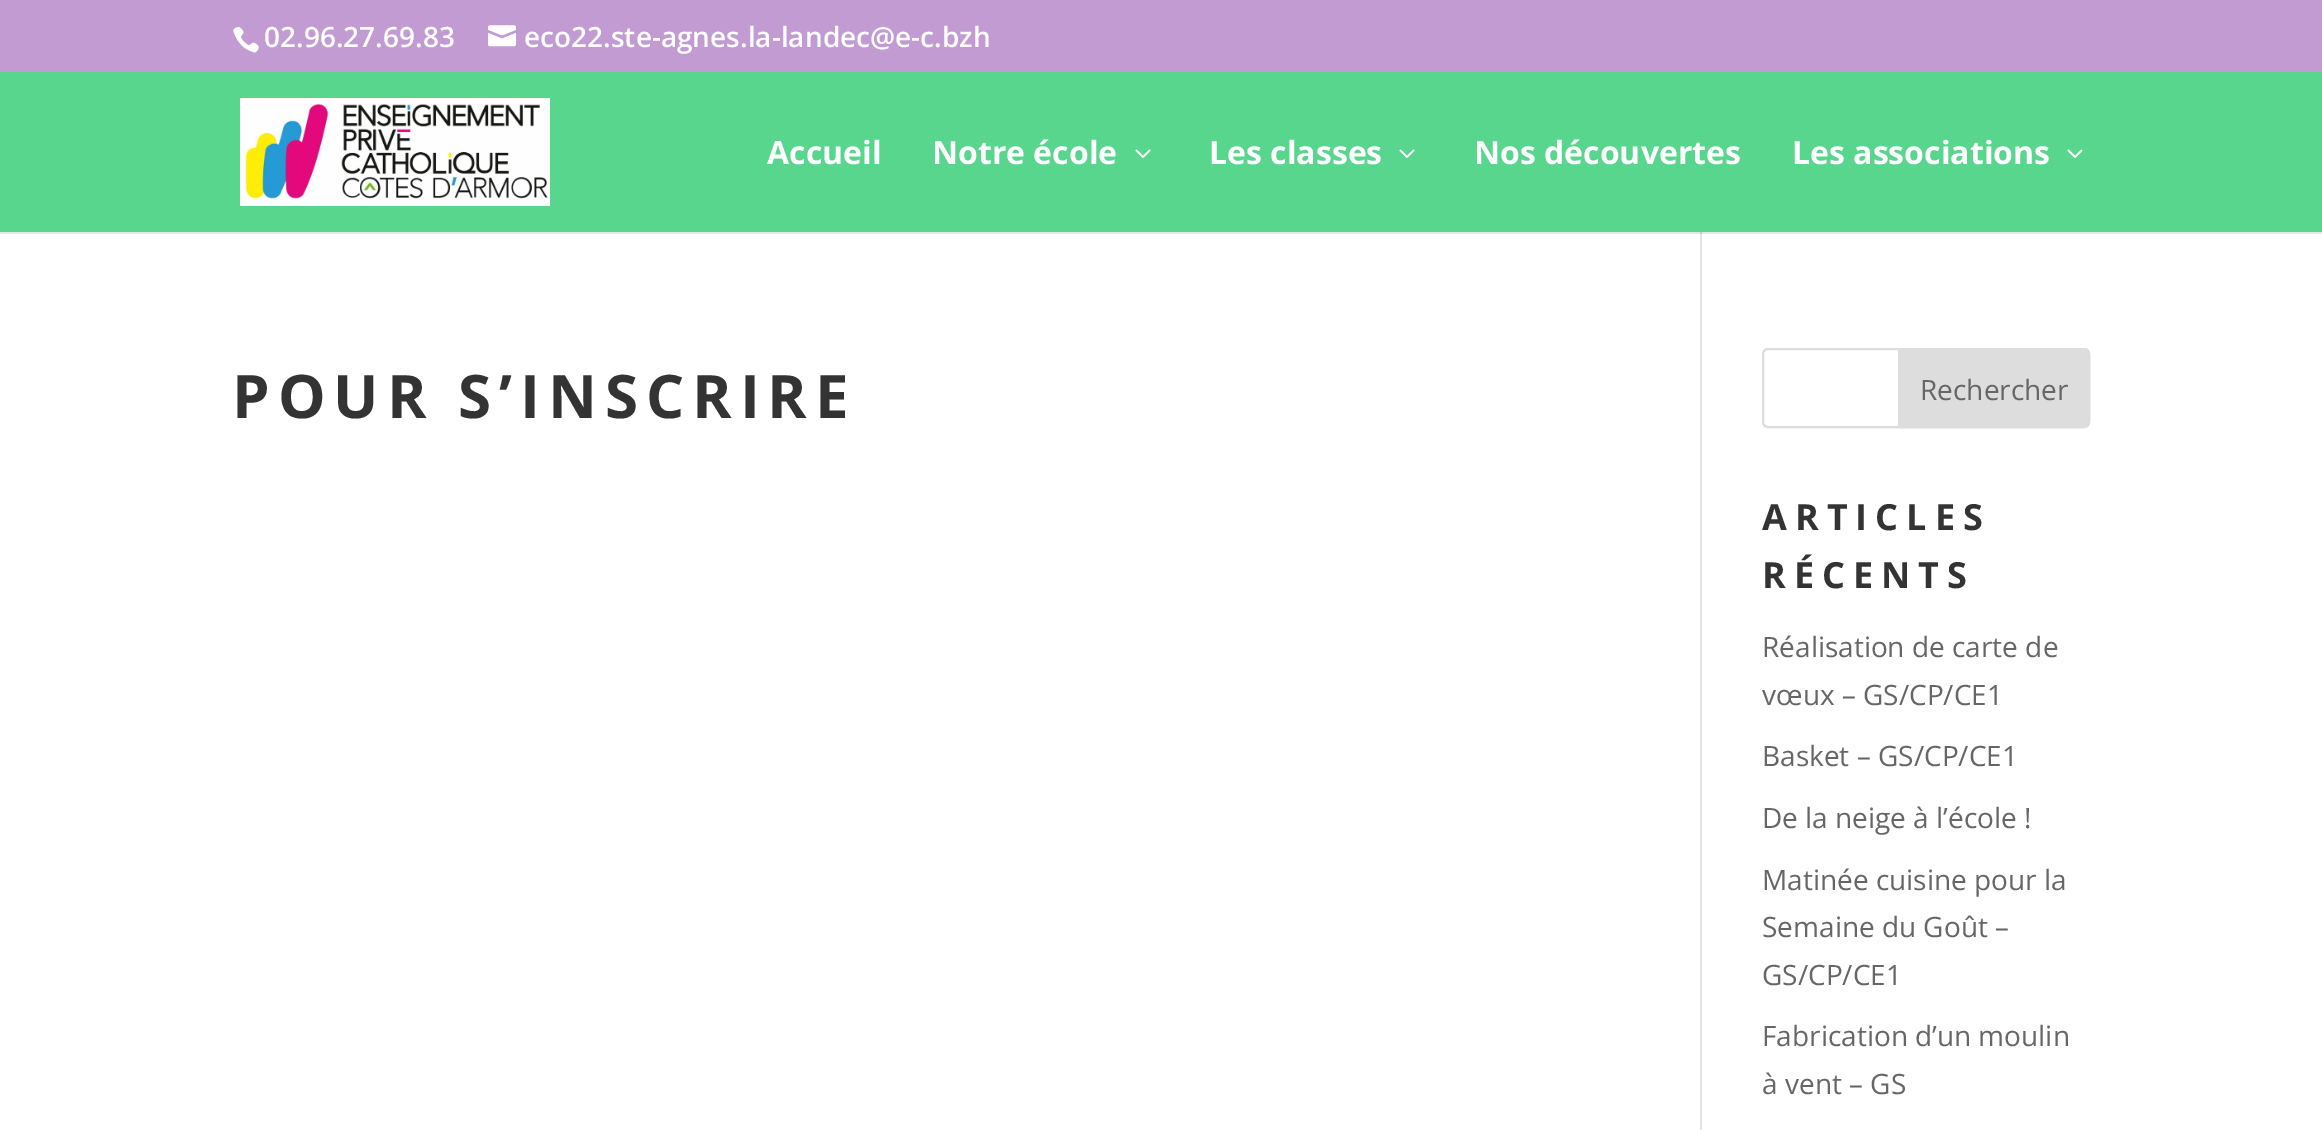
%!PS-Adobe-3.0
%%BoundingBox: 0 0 2322 1130
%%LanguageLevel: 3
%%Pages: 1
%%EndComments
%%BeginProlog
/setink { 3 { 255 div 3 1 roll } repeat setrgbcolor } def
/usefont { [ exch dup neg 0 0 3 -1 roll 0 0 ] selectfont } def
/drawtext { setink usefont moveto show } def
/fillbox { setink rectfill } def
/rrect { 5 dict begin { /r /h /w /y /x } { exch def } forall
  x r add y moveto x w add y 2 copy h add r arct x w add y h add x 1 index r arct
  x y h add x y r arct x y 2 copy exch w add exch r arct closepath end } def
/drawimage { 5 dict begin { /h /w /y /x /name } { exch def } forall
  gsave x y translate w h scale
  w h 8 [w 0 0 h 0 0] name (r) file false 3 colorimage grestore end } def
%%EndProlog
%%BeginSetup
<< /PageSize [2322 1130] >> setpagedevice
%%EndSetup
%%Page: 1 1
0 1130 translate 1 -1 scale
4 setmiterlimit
0 0 2322 1130 88 214 141 fillbox
0 0 2322 72 195 155 211 fillbox
(assets/img1.rgb) 233 27 26 26 drawimage
(02.96.27.69.83) 264 47 /OpenSans-SemiBold 28 255 255 255 drawtext
(assets/img2.rgb) 488 25 28 22 drawimage
(eco22.ste-agnes.la-landec@e-c.bzh) 524 47 /OpenSans-SemiBold 28 255 255 255 drawtext
(assets/img3.rgb) 240 98 310 108 drawimage
(Accueil) 767 164 /OpenSans-Bold 32 255 255 255 drawtext
(Notre école) 932 164 /OpenSans-Bold 32 255 255 255 drawtext
(assets/img4.rgb) 1135 149 16 9 drawimage
(Les classes) 1209 164 /OpenSans-Bold 32 255 255 255 drawtext
(assets/img4.rgb) 1399 149 16 9 drawimage
(Nos découvertes) 1474 164 /OpenSans-Bold 32 255 255 255 drawtext
(Les associations) 1792 164 /OpenSans-Bold 32 255 255 255 drawtext
(assets/img4.rgb) 2067 149 16 9 drawimage
0 234 2322 896 255 255 255 fillbox
0 232 2322 2 230 230 230 fillbox
1700 232 2 898 226 226 226 fillbox
1700 232 2 2 203 203 203 fillbox
/OpenSans-Bold 60 usefont
51 51 51 setink
232 418 moveto 8 0 (POUR S’INSCRIRE) ashow
221 221 221 setink
2 setlinewidth
1763 349 326 78 5 rrect stroke
1899 349 moveto 2084 349 lineto 2087 349 2089 351 2089 354 curveto 2089 422 lineto 2089 425 2087 427 2084 427 curveto 1899 427 lineto closepath gsave fill grestore
stroke
(Rechercher) 1920 400 /OpenSans-Regular 28 102 102 102 drawtext
/OpenSans-Bold 36 usefont
51 51 51 setink
1762 530 moveto 8 0 (ARTICLES) ashow
1762 588 moveto 8 0 (RÉCENTS) ashow
(Réalisation de carte de) 1762 657 /OpenSans-Regular 28 102 102 102 drawtext
(vœux – GS/CP/CE1) 1762 705 /OpenSans-Regular 28 102 102 102 drawtext
(Basket – GS/CP/CE1) 1762 766 /OpenSans-Regular 28 102 102 102 drawtext
(De la neige à l’école !) 1762 828 /OpenSans-Regular 28 102 102 102 drawtext
(Matinée cuisine pour la) 1762 890 /OpenSans-Regular 28 102 102 102 drawtext
(Semaine du Goût –) 1762 937 /OpenSans-Regular 28 102 102 102 drawtext
(GS/CP/CE1) 1762 985 /OpenSans-Regular 28 102 102 102 drawtext
(Fabrication d’un moulin) 1762 1046 /OpenSans-Regular 28 102 102 102 drawtext
(à vent – GS) 1762 1094 /OpenSans-Regular 28 102 102 102 drawtext
showpage
%%EOF
